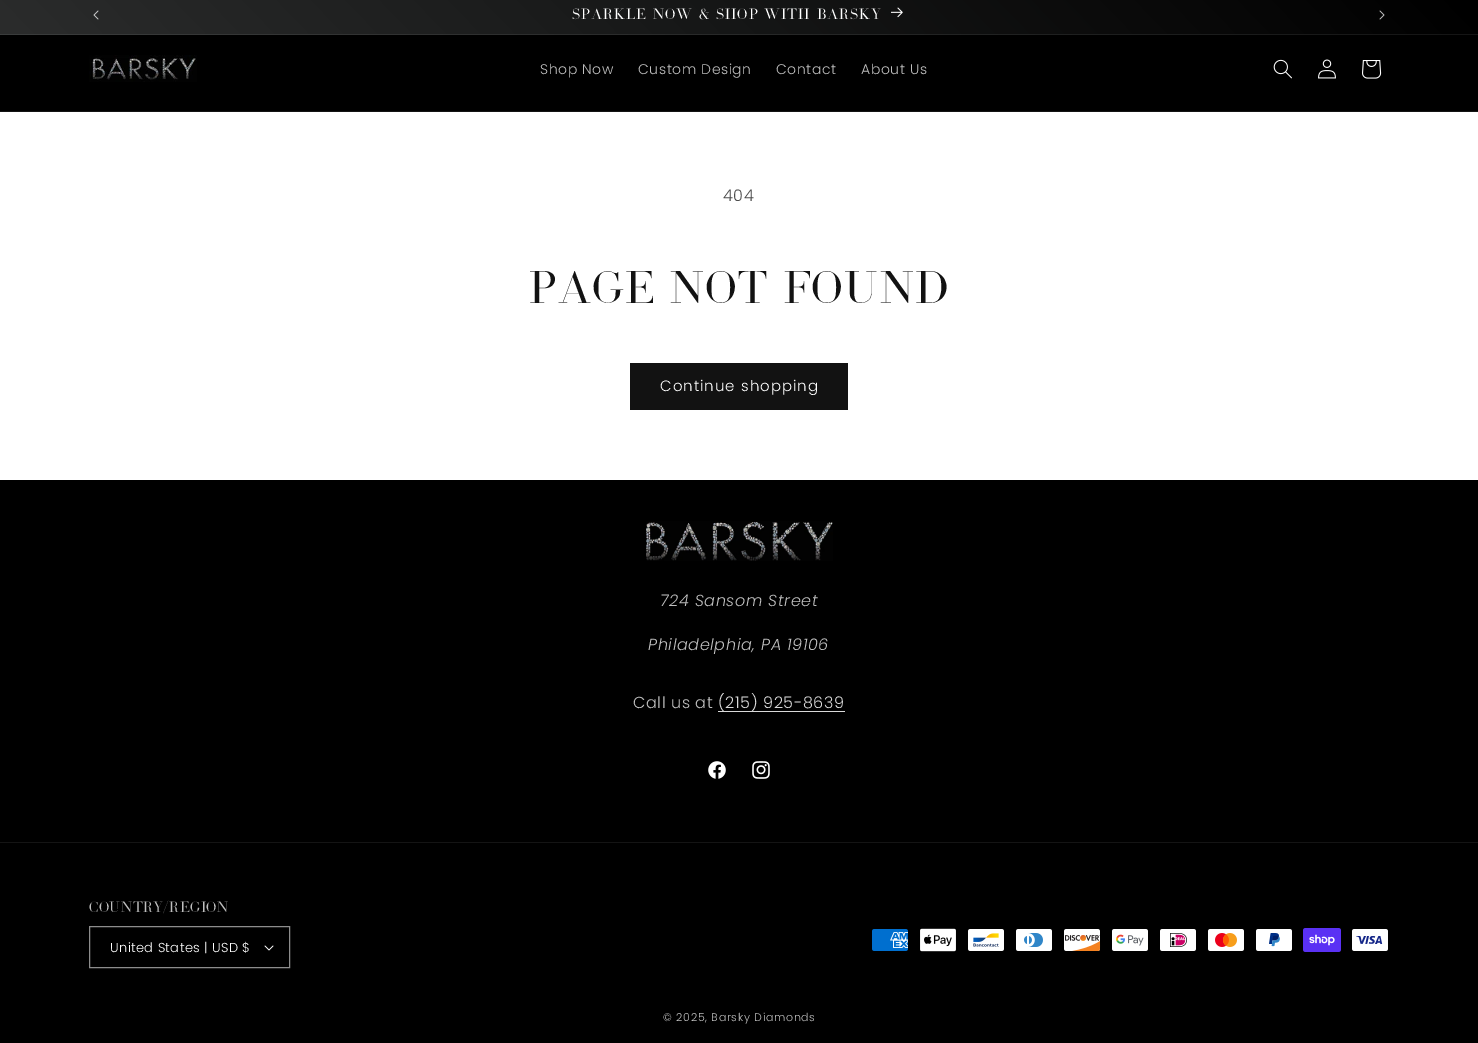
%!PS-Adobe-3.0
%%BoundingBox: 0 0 1478 1043
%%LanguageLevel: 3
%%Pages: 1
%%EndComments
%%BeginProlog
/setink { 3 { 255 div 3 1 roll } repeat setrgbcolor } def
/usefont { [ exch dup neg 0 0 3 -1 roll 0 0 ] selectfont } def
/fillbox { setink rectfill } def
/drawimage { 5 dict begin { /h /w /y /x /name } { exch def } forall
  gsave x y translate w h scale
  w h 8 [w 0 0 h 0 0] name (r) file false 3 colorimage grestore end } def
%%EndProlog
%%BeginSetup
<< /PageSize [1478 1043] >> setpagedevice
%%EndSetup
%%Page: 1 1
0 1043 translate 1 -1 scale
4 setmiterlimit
0 0 1478 1043 255 255 255 fillbox
gsave 0 0 moveto 1478 0 lineto 1478 34 lineto 0 34 lineto closepath clip newpath
<< /ShadingType 2 /ColorSpace /DeviceRGB /Coords [1382 -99 96 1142] /Extend [true true] /Function << /FunctionType 2 /Domain [0 1] /C0 [0 0 0] /C1 [0.275 0.282 0.286] /N 1 >> >> shfill grestore
gsave 0 34 moveto 1478 34 lineto 1478 35 lineto 0 35 lineto closepath clip newpath
<< /ShadingType 2 /ColorSpace /DeviceRGB /Coords [1382 -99 96 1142] /Extend [true true] /Function << /FunctionType 2 /Domain [0 1] /C0 [0.078 0.078 0.078] /C1 [0.333 0.341 0.345] /N 1 >> >> shfill grestore
(assets/img1.rgb) 93 10 6 10 drawimage
/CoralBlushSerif-Regular 13 usefont
572 19 moveto 1 0 (Sparkle Now & Shop with Barsky) ashow
(assets/img2.rgb) 891 7 12 11 drawimage
(assets/img3.rgb) 1379 10 6 10 drawimage
0 35 1478 76 0 0 0 fillbox
0 111 1478 1 20 20 20 fillbox
(assets/img4.rgb) 89 55 108 27 drawimage
/Poppins-Light 14 usefont
191 191 191 setink
540 74 moveto 0.6 0 (Shop Now) ashow
638 74 moveto 0.6 0 (Custom Design) ashow
776 74 moveto 0.6 0 (Contact) ashow
861 74 moveto 0.6 0 (About Us) ashow
(assets/img5.rgb) 1273 59 19 20 drawimage
(assets/img6.rgb) 1318 59 18 20 drawimage
(assets/img7.rgb) 1362 60 20 19 drawimage
/Poppins-Light 16 usefont
77 77 77 setink
723 201 moveto 0.6 0 (404) ashow
/CoralBlushSerif-Regular 40 usefont
18 18 18 setink
529 303 moveto 0.6 0 (Page not found) ashow
630 363 218 47 18 18 18 fillbox
/Poppins-Light 15 usefont
255 255 255 setink
660 391 moveto 1 0 (Continue shopping) ashow
0 480 1478 563 0 0 0 fillbox
(assets/img8.rgb) 646 521 187 40 drawimage
/Poppins-LightItalic 16 usefont
191 191 191 setink
660 606 moveto 0.6 0 (724 Sansom Street) ashow
648 650 moveto 0.6 0 (Philadelphia, PA 19106) ashow
/Poppins-Light 16 usefont
633 708 moveto 0.6 0 (Call us at) ashow
217 217 217 setink
718 708 moveto 0.6 0 (\(215\) 925-8639) ashow
718 711 127 1 217 217 217 fillbox
(assets/img9.rgb) 708 761 18 18 drawimage
(assets/img10.rgb) 752 761 18 18 drawimage
0 842 1478 1 20 20 20 fillbox
/CoralBlushSerif-Regular 13 usefont
191 191 191 setink
89 912 moveto 0.4 0 (Country/region) ashow
(assets/img11.rgb) 264 945 10 6 drawimage
140 140 140 setink
89.5 926.5 200 41 rectstroke
/Poppins-Light 13 usefont
255 255 255 setink
110 952 moveto 0.4 0 (United States | USD $) ashow
(assets/img12.rgb) 872 929 36 22 drawimage
(assets/img13.rgb) 920 928 36 24 drawimage
(assets/img14.rgb) 968 929 36 22 drawimage
(assets/img15.rgb) 1016 929 36 22 drawimage
(assets/img16.rgb) 1064 929 37 22 drawimage
(assets/img17.rgb) 1112 929 36 22 drawimage
(assets/img18.rgb) 1160 929 36 22 drawimage
(assets/img19.rgb) 1208 929 36 22 drawimage
(assets/img20.rgb) 1256 929 36 22 drawimage
(assets/img21.rgb) 1303 928 38 24 drawimage
(assets/img22.rgb) 1352 929 36 22 drawimage
/Poppins-Light 11 usefont
191 191 191 setink
663 1021 moveto 0.7 0 (© 2025, Barsky Diamonds) ashow
showpage
%%EOF
